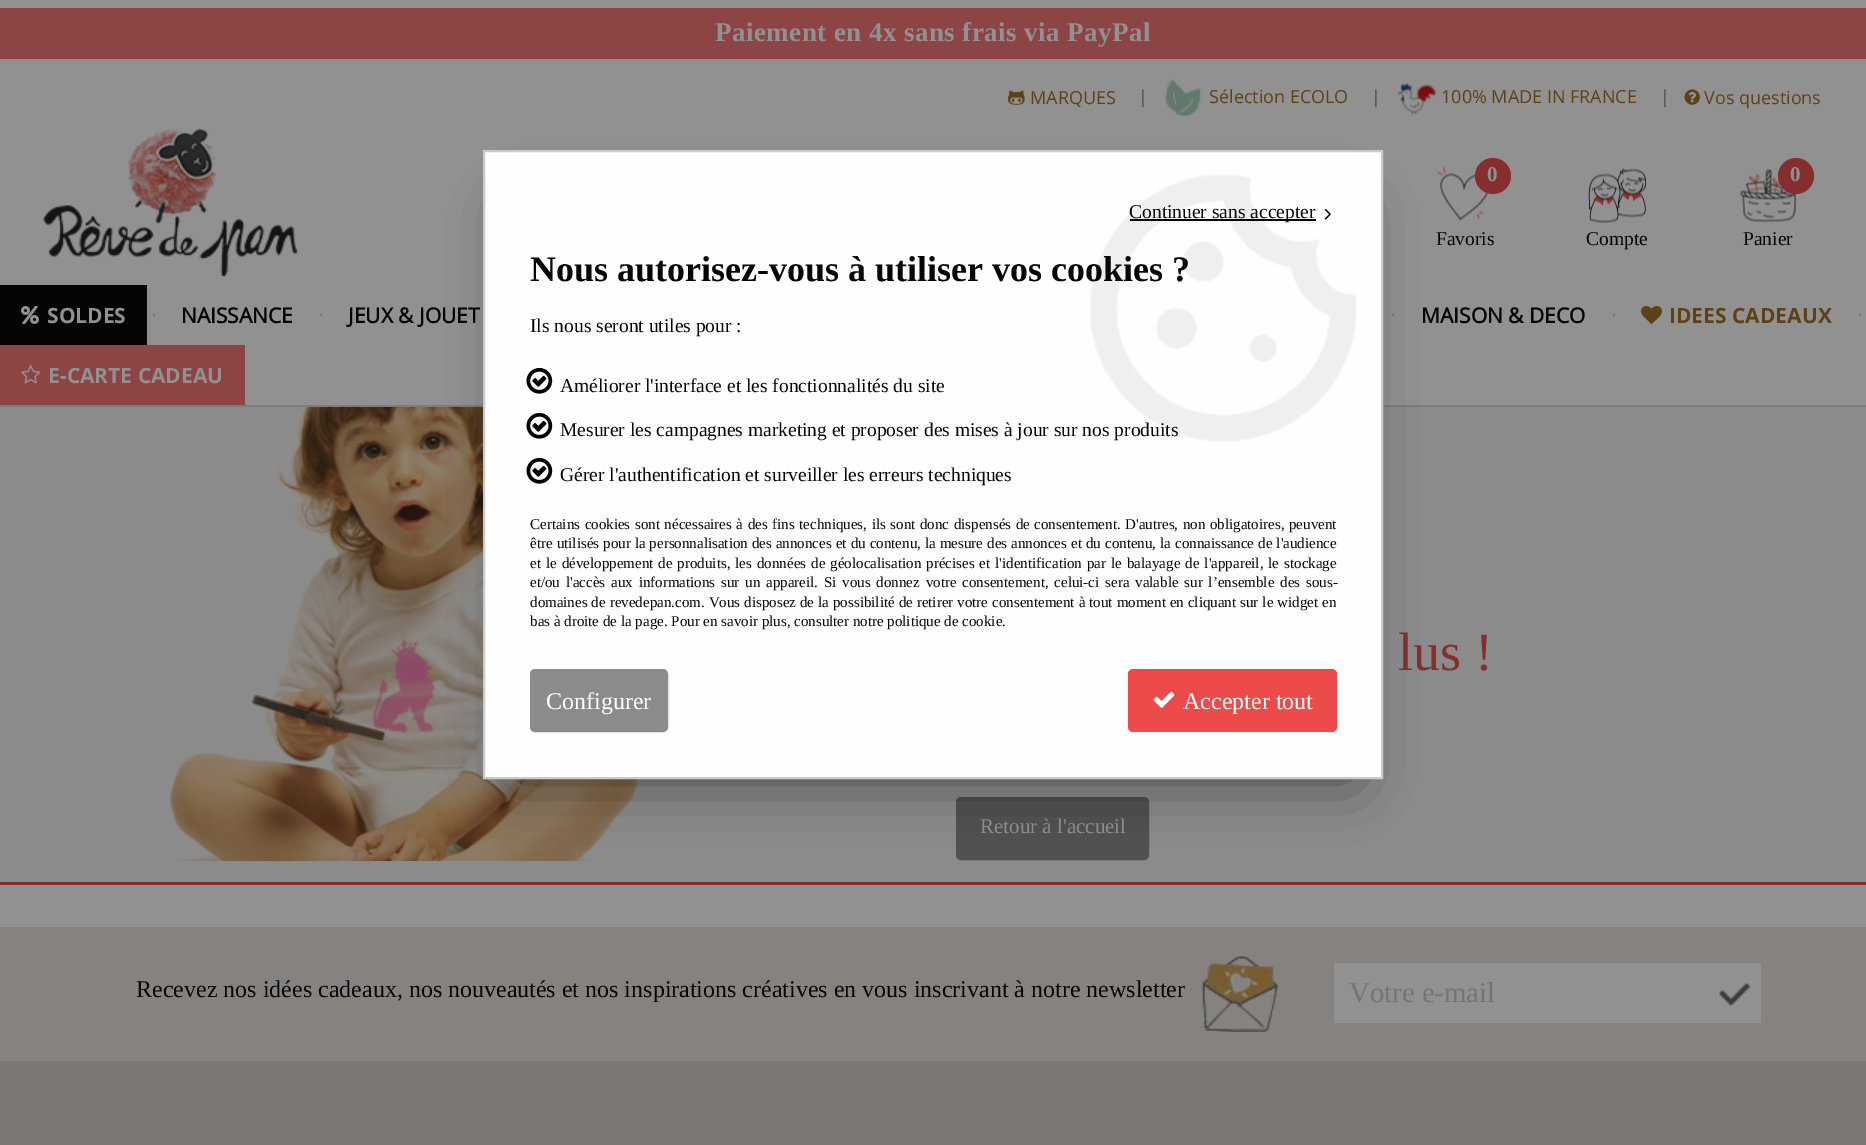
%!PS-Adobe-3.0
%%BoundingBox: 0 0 1866 1145
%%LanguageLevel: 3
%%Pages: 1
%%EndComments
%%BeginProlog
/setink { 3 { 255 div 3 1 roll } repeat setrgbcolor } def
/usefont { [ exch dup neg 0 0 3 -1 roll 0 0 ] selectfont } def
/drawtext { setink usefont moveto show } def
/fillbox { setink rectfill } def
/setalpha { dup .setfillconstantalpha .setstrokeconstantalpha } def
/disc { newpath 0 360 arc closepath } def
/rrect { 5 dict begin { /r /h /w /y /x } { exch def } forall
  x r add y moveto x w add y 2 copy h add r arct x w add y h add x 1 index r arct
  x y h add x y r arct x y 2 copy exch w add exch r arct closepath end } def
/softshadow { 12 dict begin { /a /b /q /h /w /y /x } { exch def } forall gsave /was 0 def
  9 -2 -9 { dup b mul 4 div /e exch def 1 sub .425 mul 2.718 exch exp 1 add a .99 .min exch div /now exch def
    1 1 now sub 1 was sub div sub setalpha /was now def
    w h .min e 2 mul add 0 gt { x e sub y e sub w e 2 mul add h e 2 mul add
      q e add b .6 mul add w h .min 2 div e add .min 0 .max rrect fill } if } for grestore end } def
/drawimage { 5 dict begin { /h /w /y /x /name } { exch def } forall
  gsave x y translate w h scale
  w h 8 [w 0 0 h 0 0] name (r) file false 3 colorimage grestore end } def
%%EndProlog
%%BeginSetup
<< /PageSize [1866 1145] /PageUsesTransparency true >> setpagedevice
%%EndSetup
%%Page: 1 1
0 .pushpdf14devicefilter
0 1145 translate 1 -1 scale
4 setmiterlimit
0 0 1866 1145 145 145 145 fillbox
0 8 1866 51 140 68 68 fillbox
/LiberationSerif-Bold 27 usefont
145 145 145 setink
715 41 moveto 0.45 0 (Paiement en 4x sans frais via PayPal) ashow
0 405 1866 2 125 124 124 fillbox
(assets/img1.rgb) 1008 90 17 15 drawimage
(MARQUES) 1030 104 /OpenSans-Regular 18 93 66 24 drawtext
(|) 1138 103 /OpenSans-Regular 18 75 75 75 drawtext
(assets/img2.rgb) 1165 79 36 37 drawimage
(Sélection ECOLO) 1209 103 /OpenSans-Regular 18 93 66 24 drawtext
(|) 1371 103 /OpenSans-Regular 18 75 75 75 drawtext
(assets/img3.rgb) 1397 83 39 32 drawimage
(100% MADE IN FRANCE) 1441 103 /OpenSans-Regular 18 93 66 24 drawtext
(|) 1660 103 /OpenSans-Regular 18 75 75 75 drawtext
(assets/img4.rgb) 1684 89 16 16 drawimage
(Vos questions) 1704 104 /OpenSans-Regular 18 93 66 24 drawtext
(assets/img5.rgb) 43 128 255 149 drawimage
(assets/img6.rgb) 1437 166 52 55 drawimage
134 46 46 setink
1493 176 18 disc fill
(0) 1487 181 /LiberationSerif-Bold 21 145 145 145 drawtext
(Favoris) 1436 245 /LiberationSerif-Regular 19.5 5 5 5 drawtext
(assets/img7.rgb) 1588 168 59 55 drawimage
(Compte) 1586 245 /LiberationSerif-Regular 19.5 5 5 5 drawtext
(assets/img8.rgb) 1740 169 57 54 drawimage
134 46 46 setink
1796 176 18 disc fill
(0) 1790 181 /LiberationSerif-Bold 21 145 145 145 drawtext
(Panier) 1743 245 /LiberationSerif-Regular 19.5 5 5 5 drawtext
0 285 147 60 5 5 5 fillbox
(assets/img9.rgb) 21 306 18 18 drawimage
(SOLDES) 47 323 /OpenSans-Bold 21 145 145 145 drawtext
153 314 2 2 117 117 117 fillbox
(NAISSANCE) 181 323 /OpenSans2-Bold 21 5 5 5 drawtext
320 314 2 2 117 117 117 fillbox
(JEUX & JOUET) 348 323 /OpenSans2-Bold 21 5 5 5 drawtext
1392 314 2 2 117 117 117 fillbox
(MAISON & DECO) 1421 323 /OpenSans2-Bold 21 5 5 5 drawtext
1613 314 2 2 117 117 117 fillbox
(assets/img10.rgb) 1641 306 21 18 drawimage
(IDEES CADEAUX) 1669 323 /OpenSans-Bold 21 93 66 24 drawtext
1859 314 2 2 117 117 117 fillbox
0 345 245 60 140 68 68 fillbox
(assets/img11.rgb) 21 364 20 20 drawimage
(E-CARTE CADEAU) 48 383 /OpenSans-Bold 21 145 145 145 drawtext
0 407 1866 475 140 139 140 fillbox
(assets/img12.rgb) 167 407 473 454 drawimage
(lus !) 1398 670 /LiberationSerif-Regular 54 134 46 46 drawtext
81 81 81 setink
957 798 191 61 4 rrect gsave fill grestore
2 setlinewidth
stroke
(Retour à l'accueil) 980 833 /LiberationSerif-Regular 21 145 145 145 drawtext
0 882 1866 3 134 46 46 fillbox
0 927 1866 134 133 130 127 fillbox
(Recevez nos idées cadeaux, nos nouveautés et nos inspirations créatives en vous inscrivant à notre newsletter) 136 997 /LiberationSerif-Regular 24 5 5 5 drawtext
(assets/img13.rgb) 1201 954 77 78 drawimage
1334 963 427 60 145 145 145 fillbox
(Votre e-mail) 1349 1002 /LiberationSerif-Regular 28.75 116 116 116 drawtext
(assets/img14.rgb) 1719 983 32 23 drawimage
0 1061 1866 84 124 121 117 fillbox
0 0 0 setink
513 210 840 569 0 30 0.5 softshadow
485 152 896 625 254 254 254 fillbox
(assets/img15.rgb) 1090 174 267 268 drawimage
202 202 202 setink
484 151 898 627 rectstroke
1130 219 186 2 0 0 0 fillbox
(Continuer sans accepter) 1129 218 /LiberationSerif-Regular 19.5 5 5 5 drawtext
(assets/img16.rgb) 1324 208 7 12 drawimage
(Nous autorisez-vous à utiliser vos cookies ?) 530 281 /LiberationSerif-Bold 36 5 5 5 drawtext
(Ils nous seront utiles pour :) 530 332 /LiberationSerif-Regular 19.5 5 5 5 drawtext
(assets/img17.rgb) 526 367 27 27 drawimage
(Améliorer l'interface et les fonctionnalités du site) 560 392 /LiberationSerif-Regular 19.5 5 5 5 drawtext
(assets/img17.rgb) 526 412 27 27 drawimage
(Mesurer les campagnes marketing et proposer des mises à jour sur nos produits) 560 436 /LiberationSerif-Regular 19.5 5 5 5 drawtext
(assets/img17.rgb) 526 457 27 27 drawimage
(Gérer l'authentification et surveiller les erreurs techniques) 560 481 /LiberationSerif-Regular 19.5 5 5 5 drawtext
/LiberationSerif-Regular 15 usefont
530 529 moveto 0.8 0 32 (Certains cookies sont nécessaires à des fins techniques, ils sont donc dispensés de consentement. D'autres, non obligatoires, peuvent) widthshow
530 548 moveto 0.3 0 32 (être utilisés pour la personnalisation des annonces et du contenu, la mesure des annonces et du contenu, la connaissance de l'audience) widthshow
530 568 moveto 1.25 0 32 (et le développement de produits, les données de géolocalisation précises et l'identification par le balayage de l'appareil, le stockage) widthshow
530 587 moveto 2.1 0 32 (et/ou l'accès aux informations sur un appareil. Si vous donnez votre consentement, celui-ci sera valable sur l’ensemble des sous-) widthshow
530 607 moveto 0.25 0 32 (domaines de revedepan.com. Vous disposez de la possibilité de retirer votre consentement à tout moment en cliquant sur le widget en) widthshow
(bas à droite de la page. Pour en savoir plus, consulter notre politique de cookie.) 530 626 /LiberationSerif-Regular 15 5 5 5 drawtext
139 139 139 setink
531 670 136 61 4 rrect gsave fill grestore
stroke
(Configurer) 546 709 /LiberationSerif-Regular 24 255 255 255 drawtext
235 75 75 setink
1128 669 209 63 5 rrect fill
(assets/img18.rgb) 1153 691 22 17 drawimage
(Accepter tout) 1183 709 /LiberationSerif-Regular 24 255 255 255 drawtext
.poppdf14devicefilter showpage
%%EOF
